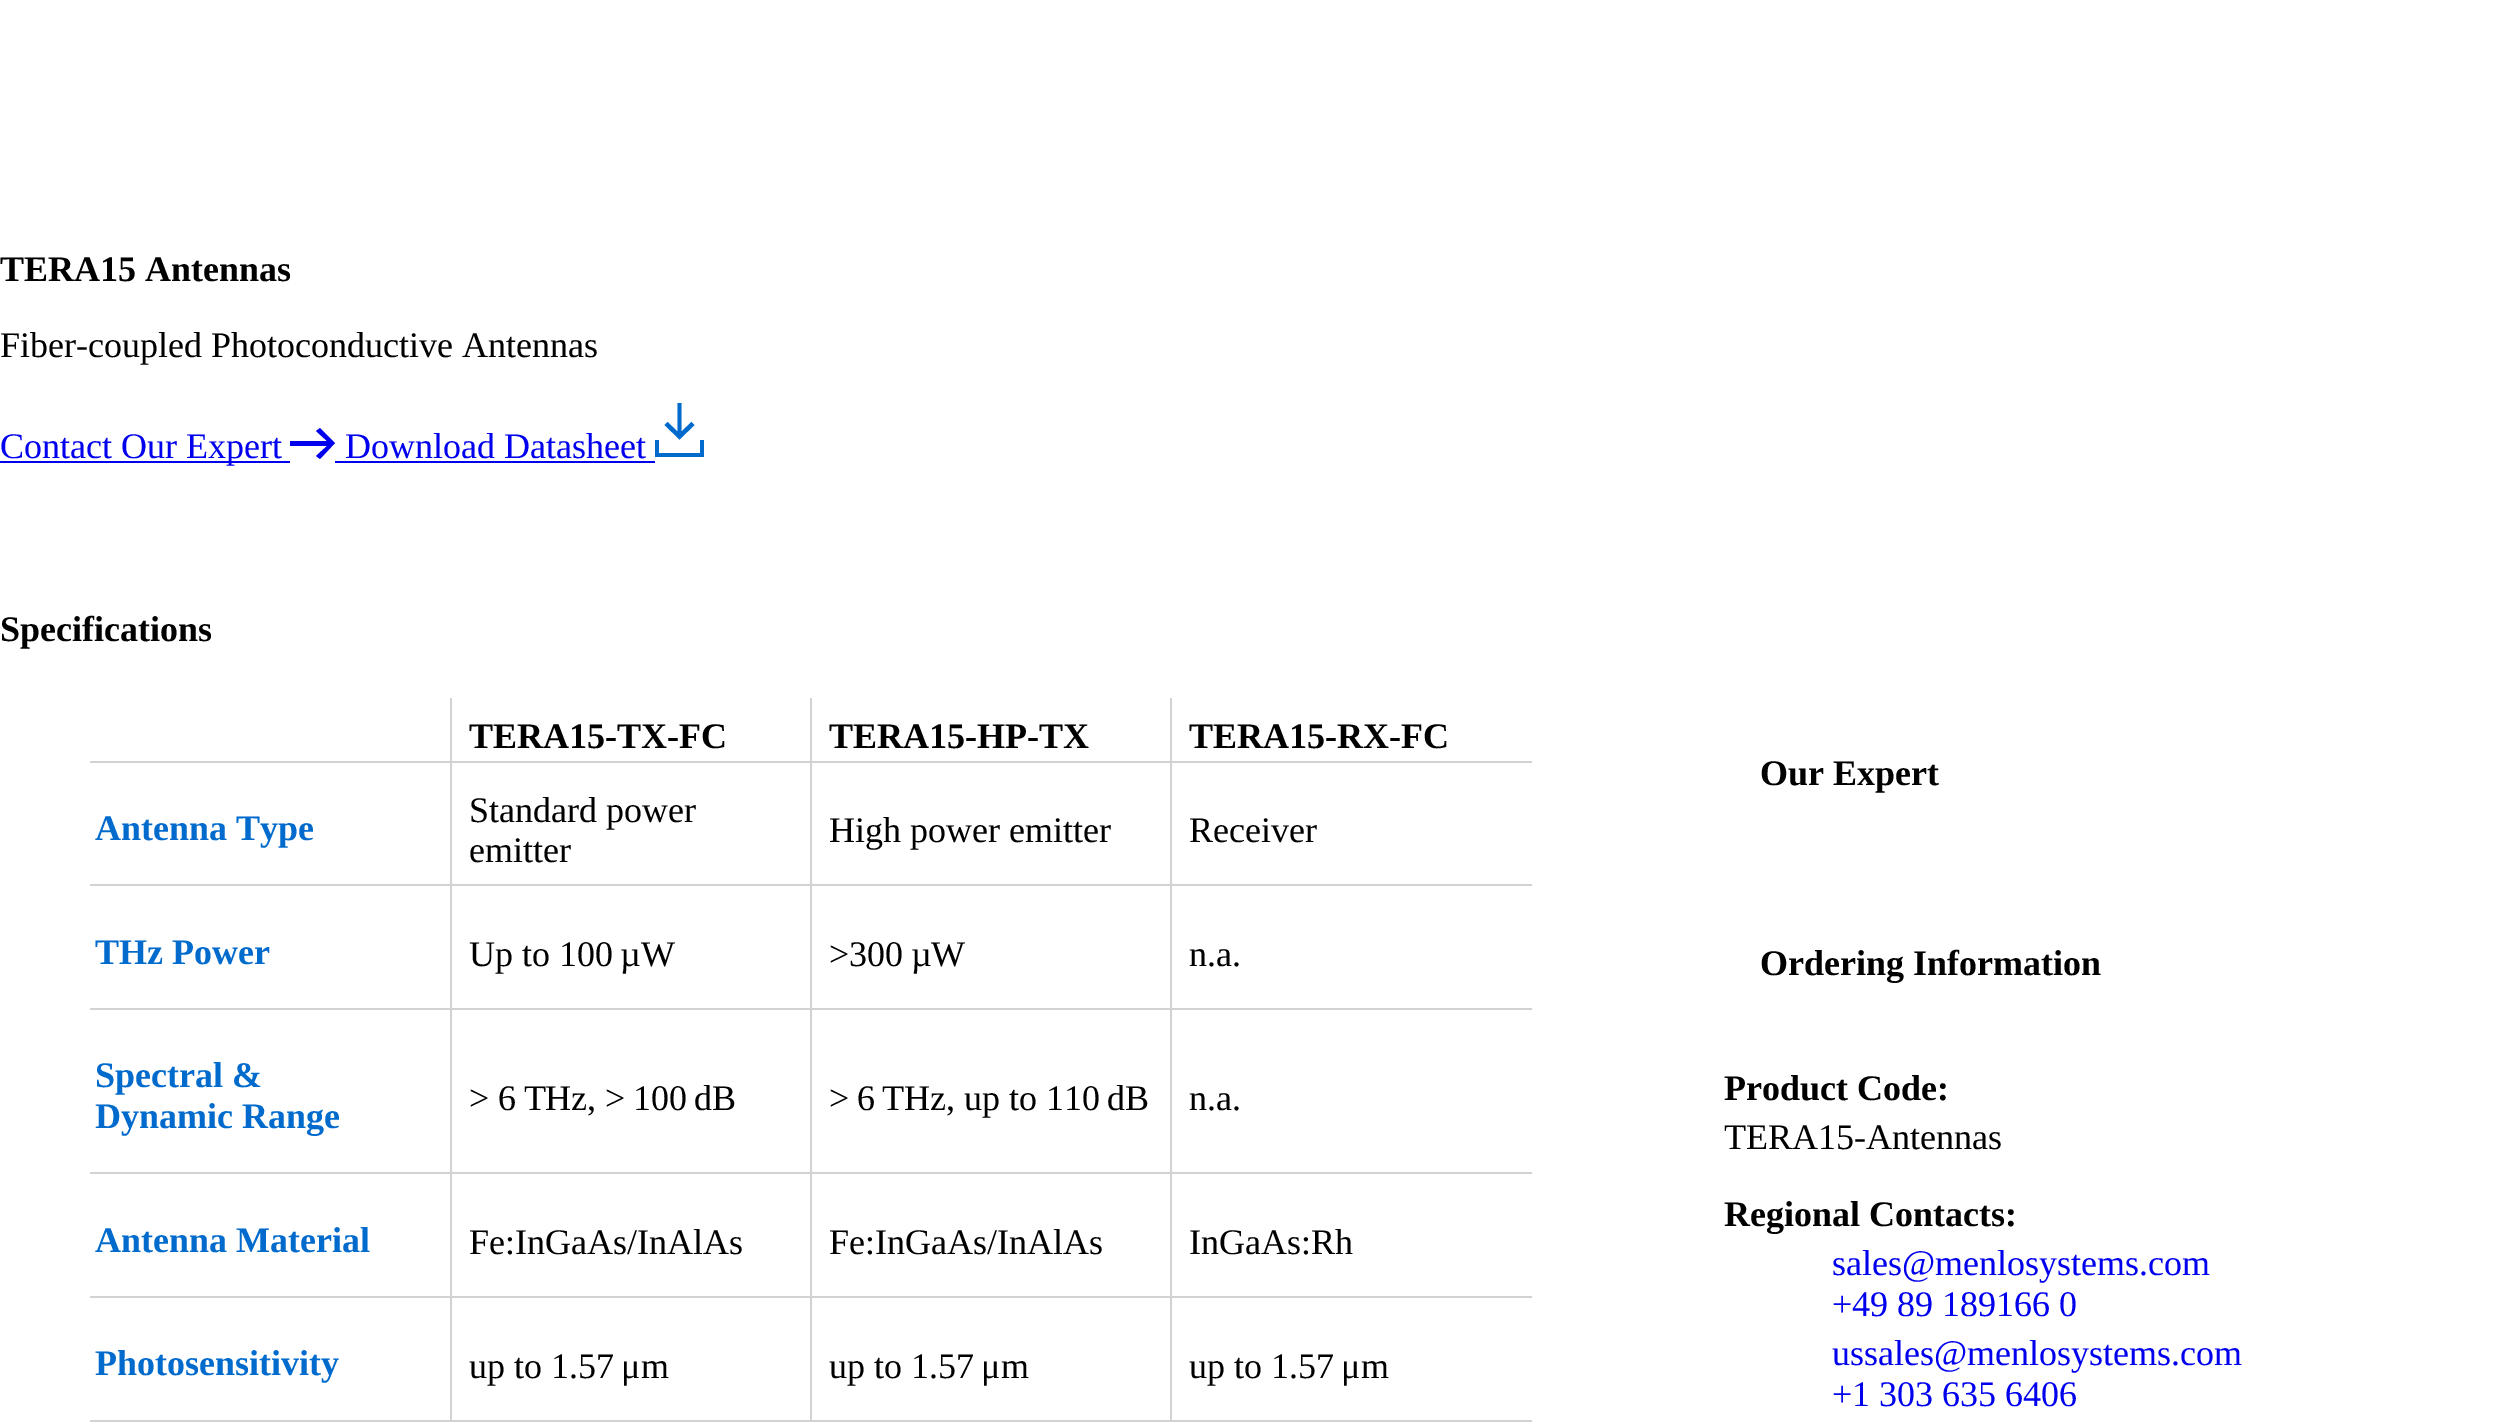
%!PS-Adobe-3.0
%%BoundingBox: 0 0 2518 1422
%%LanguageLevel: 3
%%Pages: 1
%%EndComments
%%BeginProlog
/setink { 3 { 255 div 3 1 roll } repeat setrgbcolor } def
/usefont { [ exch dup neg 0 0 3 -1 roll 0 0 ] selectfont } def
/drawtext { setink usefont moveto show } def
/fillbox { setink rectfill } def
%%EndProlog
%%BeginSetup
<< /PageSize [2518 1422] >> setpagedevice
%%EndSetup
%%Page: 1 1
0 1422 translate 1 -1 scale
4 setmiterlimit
0 0 2518 1422 255 255 255 fillbox
(TERA15 Antennas) 0 281 /LiberationSerif-Bold 36 0 0 0 drawtext
(Fiber-coupled Photoconductive Antennas) 0 357 /LiberationSerif-Regular 36 0 0 0 drawtext
0 461 290 2 0 0 238 fillbox
(Contact Our Expert) 0 458 /LiberationSerif-Regular 36 0 0 238 drawtext
335 461 320 2 0 0 238 fillbox
320 428 moveto 316 431 lineto 327 441 lineto 290 441 lineto 290 446 lineto 327 446 lineto 316 456 lineto 320 459 lineto 335 443 lineto closepath fill
(Download Datasheet) 345 458 /LiberationSerif-Regular 36 0 0 238 drawtext
gsave
655 403 49 56 rectclip
0 107 204 setink
694.5 425 moveto 691.5 422 lineto 681.5 431.5 lineto 681.5 403 lineto 677.5 402.5 lineto 677.5 431.5 lineto 667.5 422 lineto 664.5 425 lineto 679.5 439.5 lineto closepath fill
grestore
0 107 204 setink
655 440 moveto 659 440 lineto 659 453 lineto 700 453 lineto 700 440 lineto 704 440 lineto 704 457 lineto 655 457 lineto closepath eofill
(Specifications) 0 641 /LiberationSerif-Bold 36 0 0 0 drawtext
(TERA15-TX-FC) 469 748 /LiberationSerif-Bold 36 0 0 0 drawtext
(TERA15-HP-TX) 829 748 /LiberationSerif-Bold 36 0 0 0 drawtext
(TERA15-RX-FC) 1189 748 /LiberationSerif-Bold 36 0 0 0 drawtext
90 761 1442 2 211 210 210 fillbox
90 884 1442 2 211 210 210 fillbox
90 1008 1442 2 211 210 210 fillbox
90 1172 1442 2 211 210 210 fillbox
90 1296 1442 2 211 210 210 fillbox
90 1420 1442 2 211 210 210 fillbox
450 1296 2 126 211 210 210 fillbox
450 1172 2 126 211 210 210 fillbox
450 1008 2 167 211 210 210 fillbox
450 884 2 126 211 210 210 fillbox
450 698 2 189 211 210 210 fillbox
(Antenna Type) 95 840 /LiberationSerif-Bold 36 0 107 204 drawtext
810 1296 2 126 211 210 210 fillbox
810 1172 2 126 211 210 210 fillbox
810 1008 2 167 211 210 210 fillbox
810 884 2 126 211 210 210 fillbox
810 698 2 189 211 210 210 fillbox
(Standard power) 469 822 /LiberationSerif-Regular 36 0 0 0 drawtext
(emitter) 469 862 /LiberationSerif-Regular 36 0 0 0 drawtext
1170 1296 2 126 211 210 210 fillbox
1170 1172 2 126 211 210 210 fillbox
1170 1008 2 167 211 210 210 fillbox
1170 884 2 126 211 210 210 fillbox
1170 698 2 189 211 210 210 fillbox
(High power emitter) 829 842 /LiberationSerif-Regular 36 0 0 0 drawtext
(Receiver) 1189 842 /LiberationSerif-Regular 36 0 0 0 drawtext
(THz Power) 95 964 /LiberationSerif-Bold 36 0 107 204 drawtext
(Up to 100 µW) 469 966 /LiberationSerif-Regular 36 0 0 0 drawtext
(>300 µW) 829 966 /LiberationSerif-Regular 36 0 0 0 drawtext
(n.a.) 1189 966 /LiberationSerif-Regular 36 0 0 0 drawtext
(Spectral &) 95 1087 /LiberationSerif-Bold 36 0 107 204 drawtext
(Dynamic Range) 95 1128 /LiberationSerif-Bold 36 0 107 204 drawtext
(> 6 THz, > 100 dB) 469 1110 /LiberationSerif-Regular 36 0 0 0 drawtext
(> 6 THz, up to 110 dB) 829 1110 /LiberationSerif-Regular 36 0 0 0 drawtext
(n.a.) 1189 1110 /LiberationSerif-Regular 36 0 0 0 drawtext
(Antenna Material) 95 1252 /LiberationSerif-Bold 36 0 107 204 drawtext
(Fe:InGaAs/InAlAs) 469 1254 /LiberationSerif-Regular 36 0 0 0 drawtext
(Fe:InGaAs/InAlAs) 829 1254 /LiberationSerif-Regular 36 0 0 0 drawtext
(InGaAs:Rh) 1189 1254 /LiberationSerif-Regular 36 0 0 0 drawtext
(Photosensitivity) 95 1375 /LiberationSerif-Bold 36 0 107 204 drawtext
(up to 1.57 μm) 469 1378 /LiberationSerif-Regular 36 0 0 0 drawtext
(up to 1.57 μm) 829 1378 /LiberationSerif-Regular 36 0 0 0 drawtext
(up to 1.57 μm) 1189 1378 /LiberationSerif-Regular 36 0 0 0 drawtext
(Our Expert) 1760 785 /LiberationSerif-Bold 36 0 0 0 drawtext
(Ordering Information) 1760 975 /LiberationSerif-Bold 36 0 0 0 drawtext
(Product Code:) 1724 1100 /LiberationSerif-Bold 36 0 0 0 drawtext
(TERA15-Antennas) 1724 1149 /LiberationSerif-Regular 36 0 0 0 drawtext
(Regional Contacts:) 1724 1226 /LiberationSerif-Bold 36 0 0 0 drawtext
(sales@menlosystems.com) 1832 1275 /LiberationSerif-Regular 36 0 0 238 drawtext
(+49 89 189166 0) 1832 1316 /LiberationSerif-Regular 36 0 0 238 drawtext
(ussales@menlosystems.com) 1832 1365 /LiberationSerif-Regular 36 0 0 238 drawtext
(+1 303 635 6406) 1832 1406 /LiberationSerif-Regular 36 0 0 238 drawtext
showpage
%%EOF
